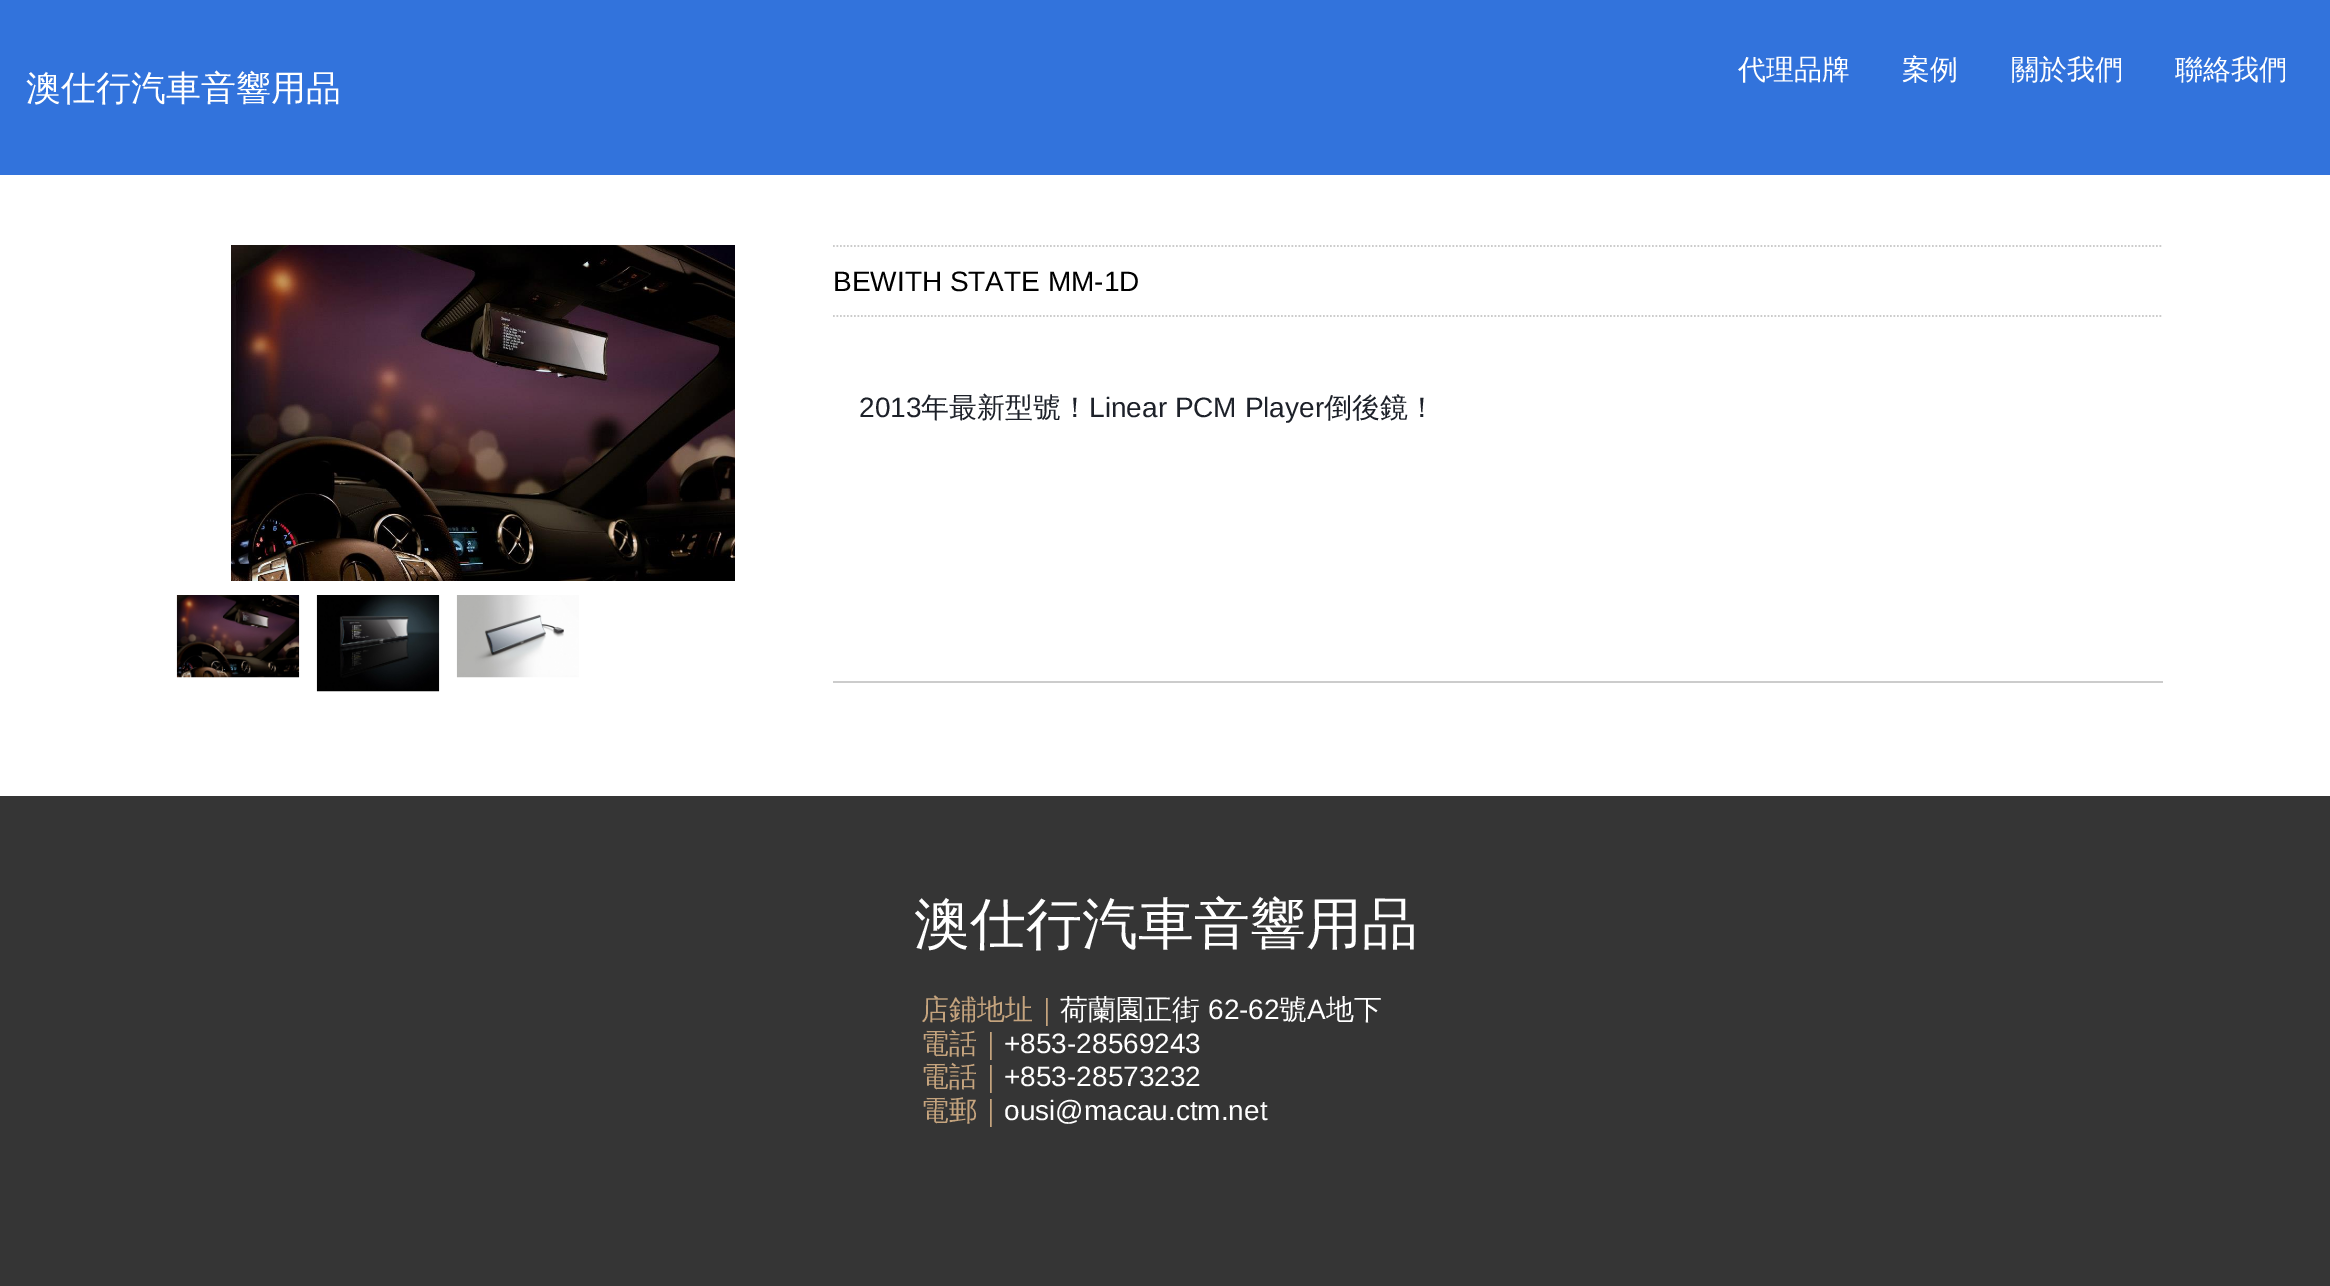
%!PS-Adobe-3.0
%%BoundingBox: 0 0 2330 1286
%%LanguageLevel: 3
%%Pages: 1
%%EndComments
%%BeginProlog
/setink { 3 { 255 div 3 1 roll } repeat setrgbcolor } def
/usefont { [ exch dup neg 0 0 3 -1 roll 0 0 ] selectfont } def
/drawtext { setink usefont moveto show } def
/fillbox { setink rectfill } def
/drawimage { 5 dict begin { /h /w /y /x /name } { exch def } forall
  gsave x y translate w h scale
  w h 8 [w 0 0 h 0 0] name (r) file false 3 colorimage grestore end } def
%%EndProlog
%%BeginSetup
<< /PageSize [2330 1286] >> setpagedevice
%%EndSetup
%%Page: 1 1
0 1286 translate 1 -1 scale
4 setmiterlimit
0 0 2330 1286 53 53 53 fillbox
0 0 2330 175 50 115 220 fillbox
(澳仕行汽車音響用品) 26 100 /WenQuanYiZenHei-Medium 35 255 255 255 drawtext
(代理品牌) 1738 79 /WenQuanYiZenHei-Medium 28 255 255 255 drawtext
(案例) 1902 79 /WenQuanYiZenHei-Medium 28 255 255 255 drawtext
(關於我們) 2011 79 /WenQuanYiZenHei-Medium 28 255 255 255 drawtext
(聯絡我們) 2175 79 /WenQuanYiZenHei-Medium 28 255 255 255 drawtext
0 175 2330 621 255 255 255 fillbox
(assets/img1.rgb) 231 245 504 336 drawimage
(assets/img2.rgb) 176 595 124 83 drawimage
(assets/img3.rgb) 316 595 124 97 drawimage
(assets/img4.rgb) 456 595 123 83 drawimage
833 681 1330 2 204 204 204 fillbox
1.8 setlinewidth
[1.75 1.75] 0 setdash
833 246 moveto 2163 246 lineto stroke
(BEWITH STATE MM-1D) 833 291 /LiberationSans-Regular 28 0 0 0 drawtext
204 204 204 setink
833 316 moveto 2163 316 lineto stroke
(2013) 859 417 /LiberationSans-Regular 28 29 33 41 drawtext
(年最新型號！) 921 417 /WenQuanYiZenHei-Medium 28 29 33 41 drawtext
(Linear PCM Player) 1089 417 /LiberationSans-Regular 28 29 33 41 drawtext
(倒後鏡！) 1324 417 /WenQuanYiZenHei-Medium 28 29 33 41 drawtext
(澳仕行汽車音響用品) 914 943 /WenQuanYiZenHei-Medium 56 255 255 255 drawtext
(店鋪地址｜) 921 1019 /WenQuanYiZenHei-Medium 28 197 164 126 drawtext
(荷蘭園正街) 1060 1019 /WenQuanYiZenHei-Medium 28 255 255 255 drawtext
(62-62) 1208 1019 /LiberationSans-Regular 28 255 255 255 drawtext
(號) 1279 1019 /WenQuanYiZenHei-Medium 28 255 255 255 drawtext
(A) 1307 1019 /LiberationSans-Regular 28 255 255 255 drawtext
(地下) 1326 1019 /WenQuanYiZenHei-Medium 28 255 255 255 drawtext
(電話｜) 921 1053 /WenQuanYiZenHei-Medium 28 197 164 126 drawtext
(+853-28569243) 1004 1053 /LiberationSans-Regular 28 255 255 255 drawtext
(電話｜) 921 1086 /WenQuanYiZenHei-Medium 28 197 164 126 drawtext
(+853-28573232) 1004 1086 /LiberationSans-Regular 28 255 255 255 drawtext
(電郵｜) 921 1120 /WenQuanYiZenHei-Medium 28 197 164 126 drawtext
(ousi@macau.ctm.net) 1004 1120 /LiberationSans-Regular 28 255 255 255 drawtext
showpage
%%EOF
